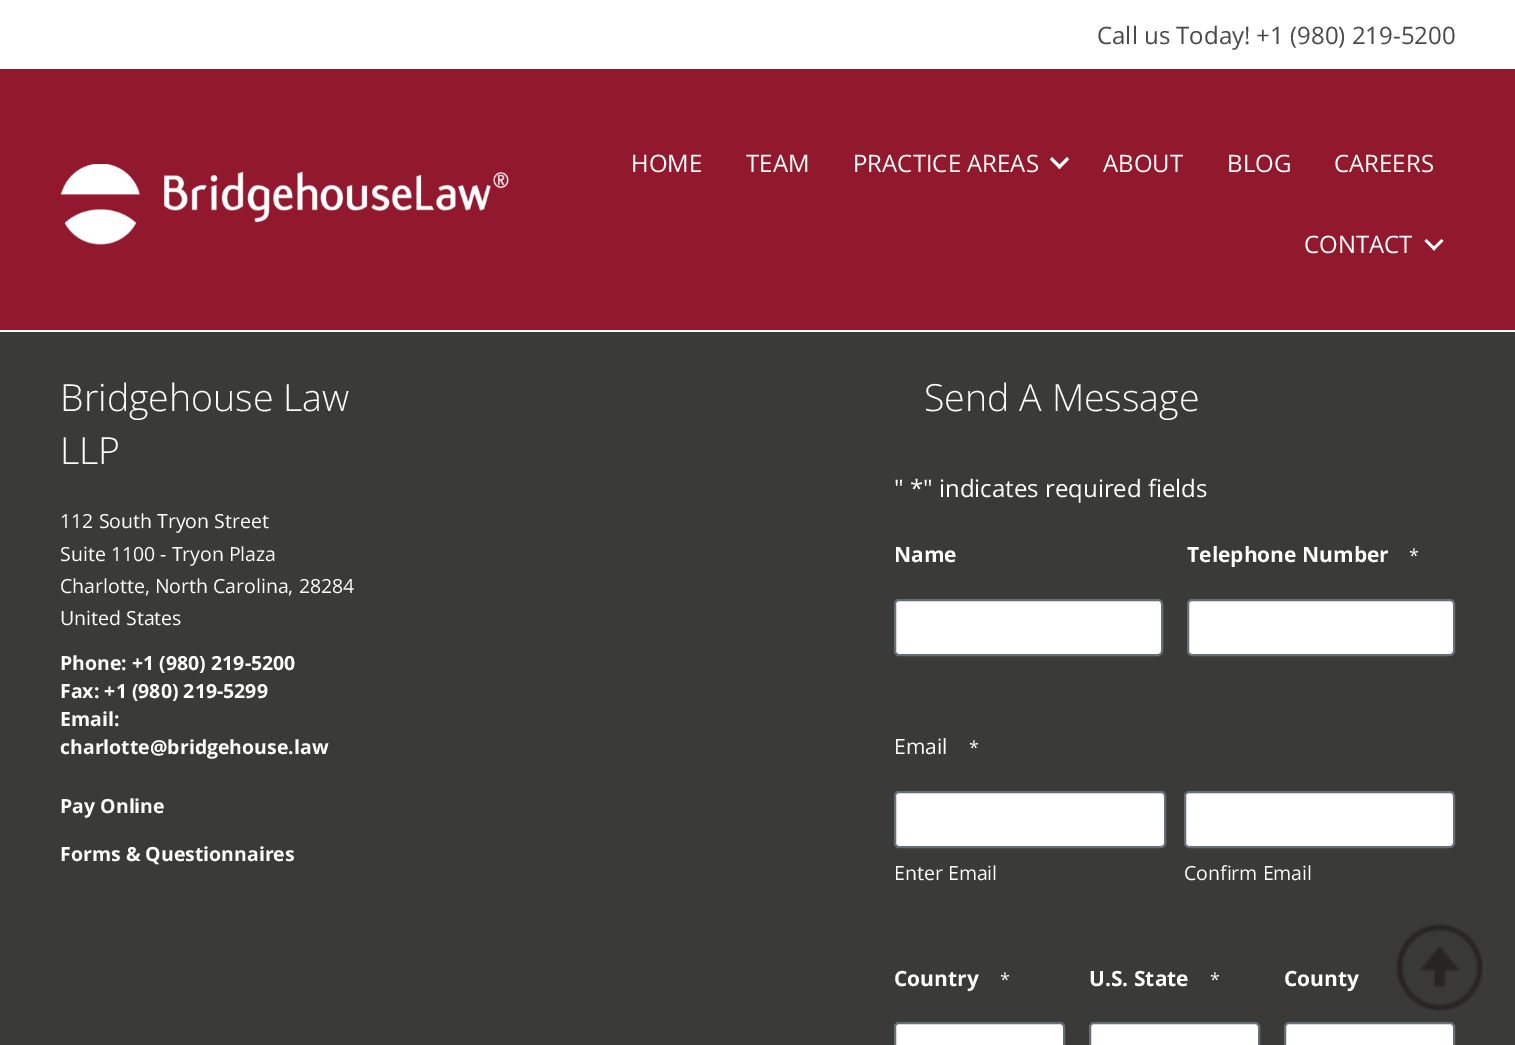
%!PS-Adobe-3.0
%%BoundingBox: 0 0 1515 1045
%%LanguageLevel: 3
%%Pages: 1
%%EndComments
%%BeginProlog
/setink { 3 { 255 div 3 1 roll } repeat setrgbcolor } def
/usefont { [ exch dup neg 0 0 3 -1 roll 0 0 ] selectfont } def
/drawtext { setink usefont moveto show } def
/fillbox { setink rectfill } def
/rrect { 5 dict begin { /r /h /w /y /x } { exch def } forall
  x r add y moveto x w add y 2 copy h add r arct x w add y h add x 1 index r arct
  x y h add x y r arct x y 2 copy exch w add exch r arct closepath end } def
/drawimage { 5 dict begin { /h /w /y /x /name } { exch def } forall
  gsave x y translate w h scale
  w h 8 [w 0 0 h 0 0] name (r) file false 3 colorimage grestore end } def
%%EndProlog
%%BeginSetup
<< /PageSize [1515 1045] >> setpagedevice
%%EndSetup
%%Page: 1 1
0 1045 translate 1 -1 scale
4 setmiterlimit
0 0 1515 1045 58 58 56 fillbox
0 0 1515 69 255 255 255 fillbox
(Call us Today! +1 \(980\) 219-5200) 1097 44 /OpenSans-Regular 24 74 74 74 drawtext
0 69 1515 261 146 24 45 fillbox
0 330 1515 2 255 255 255 fillbox
(assets/img1.rgb) 60 164 449 81 drawimage
(HOME) 631 172 /OpenSans-Regular 24 255 255 255 drawtext
(TEAM) 746 172 /OpenSans-Regular 24 255 255 255 drawtext
(PRACTICE AREAS) 853 172 /OpenSans-Regular 24 255 255 255 drawtext
1067 157 moveto 1069 159.5 lineto 1059.5 169 lineto 1057.5 166.5 lineto closepath fill
1052 157 moveto 1061.5 166.5 lineto 1059.5 169 lineto 1050 159.5 lineto closepath fill
(ABOUT) 1103 172 /OpenSans-Regular 24 255 255 255 drawtext
(BLOG) 1227 172 /OpenSans-Regular 24 255 255 255 drawtext
(CAREERS) 1334 172 /OpenSans-Regular 24 255 255 255 drawtext
(CONTACT) 1304 253 /OpenSans-Regular 24 255 255 255 drawtext
1441.5 239 moveto 1443.5 241 lineto 1434 250.5 lineto 1432 248.5 lineto closepath fill
1426.5 239 moveto 1436 248.5 lineto 1434 250.5 lineto 1424.5 241 lineto closepath fill
(Bridgehouse Law) 60 411 /OpenSans-Light 37.5 255 255 255 drawtext
(LLP) 60 464 /OpenSans-Light 37.5 255 255 255 drawtext
(112 South Tryon Street) 60 528 /OpenSans-Regular 19.5 255 255 255 drawtext
(Suite 1100 - Tryon Plaza) 60 561 /OpenSans-Regular 19.5 255 255 255 drawtext
(Charlotte, North Carolina, 28284) 60 593 /OpenSans-Regular 19.5 255 255 255 drawtext
(United States) 60 625 /OpenSans-Regular 19.5 255 255 255 drawtext
(Phone: +1 \(980\) 219-5200) 60 670 /OpenSans-Bold 19.5 255 255 255 drawtext
(Fax: +1 \(980\) 219-5299) 60 698 /OpenSans-Bold 19.5 255 255 255 drawtext
(Email:) 60 726 /OpenSans-Bold 19.5 255 255 255 drawtext
(charlotte@bridgehouse.law) 60 754 /OpenSans-Bold 19.5 255 255 255 drawtext
(Pay Online) 60 813 /OpenSans-Bold 19.5 255 255 255 drawtext
(Forms & Questionnaires) 60 861 /OpenSans-Bold 19.5 255 255 255 drawtext
(Send A Message) 924 411 /OpenSans-Light 37.5 255 255 255 drawtext
(" *" indicates required fields) 894 497 /OpenSans-Regular 24 255 255 255 drawtext
(Name) 894 562 /OpenSans-Bold 21 255 255 255 drawtext
895 600 267 55 4 rrect gsave fill grestore
104 110 119 setink
2 setlinewidth
stroke
(Telephone Number) 1187 562 /OpenSans-Bold 21 255 255 255 drawtext
(*) 1409 562 /OpenSans-Regular 18 255 255 255 drawtext
1188 600 266 55 4 rrect gsave fill grestore
104 110 119 setink
stroke
(Email) 894 754 /OpenSans-Regular 21 255 255 255 drawtext
(*) 969 754 /OpenSans-Regular 18 255 255 255 drawtext
895 792 270 55 4 rrect gsave fill grestore
104 110 119 setink
stroke
(Enter Email) 894 880 /OpenSans-Regular 19.5 255 255 255 drawtext
1185 792 269 55 4 rrect gsave fill grestore
104 110 119 setink
stroke
(Confirm Email) 1184 880 /OpenSans-Regular 19.5 255 255 255 drawtext
(Country) 894 986 /OpenSans-Bold 21 255 255 255 drawtext
(*) 1000 986 /OpenSans-Regular 18 255 255 255 drawtext
895 1023 169 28 4 rrect gsave fill grestore
104 110 119 setink
stroke
(U.S. State) 1089 986 /OpenSans-Bold 21 255 255 255 drawtext
(*) 1210 986 /OpenSans-Regular 18 255 255 255 drawtext
1090 1023 169 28 4 rrect gsave fill grestore
104 110 119 setink
stroke
(County) 1284 986 /OpenSans-Bold 21 255 255 255 drawtext
1285 1023 169 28 4 rrect gsave fill grestore
104 110 119 setink
stroke
(assets/img2.rgb) 1396 924 87 87 drawimage
showpage
%%EOF
